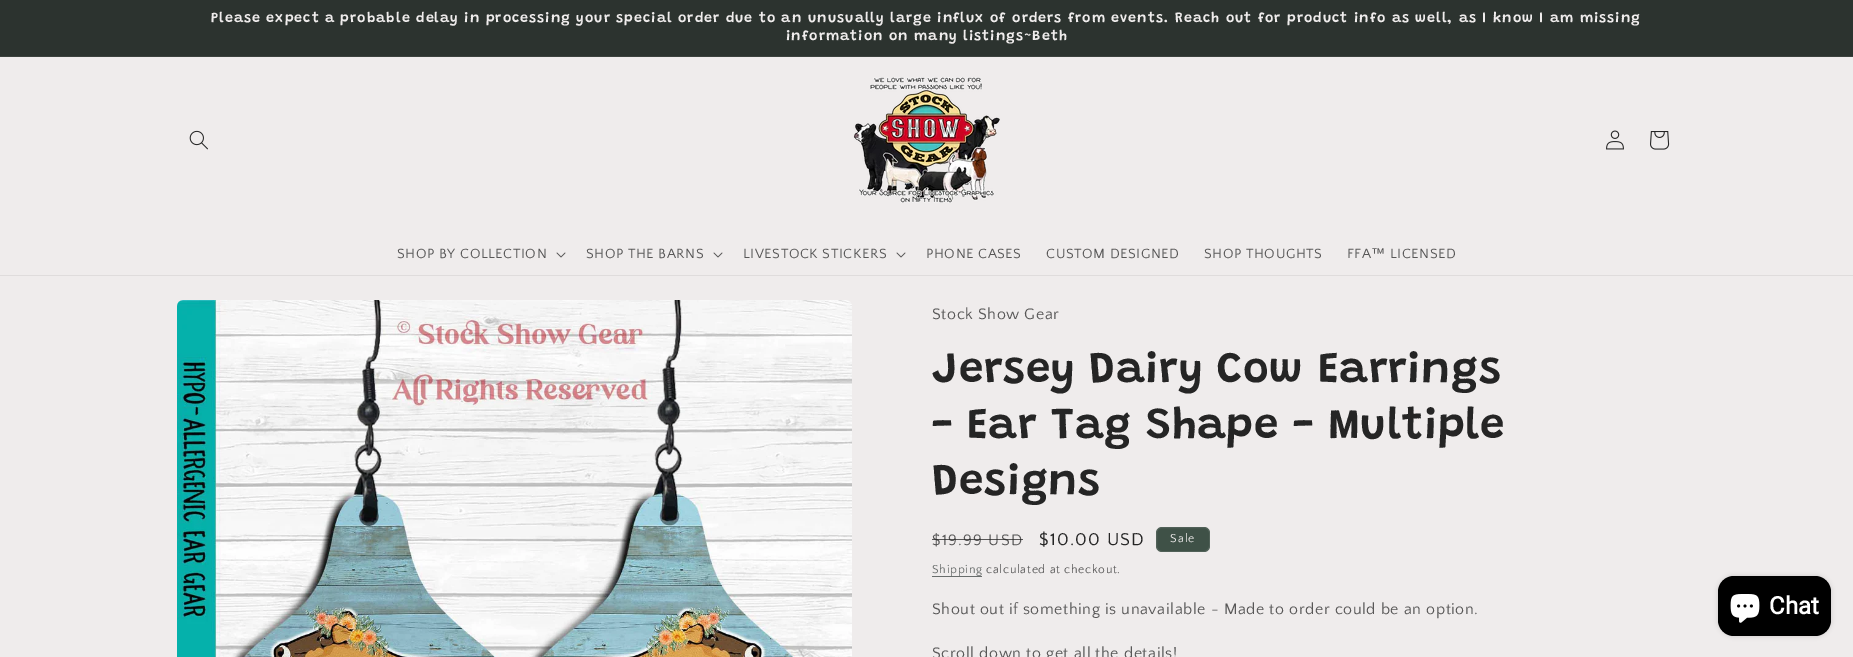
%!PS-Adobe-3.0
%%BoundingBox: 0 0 1853 657
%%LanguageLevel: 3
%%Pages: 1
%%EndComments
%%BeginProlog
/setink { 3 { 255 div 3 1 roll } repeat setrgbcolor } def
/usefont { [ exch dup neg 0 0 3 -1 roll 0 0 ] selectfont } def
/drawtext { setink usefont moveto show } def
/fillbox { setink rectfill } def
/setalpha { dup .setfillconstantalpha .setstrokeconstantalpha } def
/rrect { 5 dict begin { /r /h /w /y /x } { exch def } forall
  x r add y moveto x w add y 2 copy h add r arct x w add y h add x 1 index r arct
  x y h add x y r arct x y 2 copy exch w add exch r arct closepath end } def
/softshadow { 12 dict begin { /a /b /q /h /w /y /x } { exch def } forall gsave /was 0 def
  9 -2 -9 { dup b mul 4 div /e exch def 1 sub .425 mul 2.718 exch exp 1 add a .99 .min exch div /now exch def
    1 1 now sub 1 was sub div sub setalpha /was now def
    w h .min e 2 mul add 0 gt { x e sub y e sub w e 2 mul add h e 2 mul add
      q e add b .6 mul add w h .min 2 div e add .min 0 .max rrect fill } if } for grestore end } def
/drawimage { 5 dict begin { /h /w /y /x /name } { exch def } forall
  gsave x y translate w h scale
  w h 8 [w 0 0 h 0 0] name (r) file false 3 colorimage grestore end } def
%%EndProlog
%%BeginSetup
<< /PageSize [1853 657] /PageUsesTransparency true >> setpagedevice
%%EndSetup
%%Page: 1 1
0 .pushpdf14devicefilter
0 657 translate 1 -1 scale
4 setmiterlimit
0 0 1853 657 239 236 236 fillbox
0 0 1853 56 44 51 47 fillbox
0 56 1853 1 60 66 62 fillbox
/Grandstander-SemiBold 14.3 usefont
239 236 236 setink
211 22 moveto 1 0 (Please expect a probable delay in processing your special order due to an unusually large influx of orders from events. Reach out for product info as well, as I know I am missing) ashow
786 40 moveto 1 0 (information on many listings~Beth) ashow
0 275 1853 1 223 220 220 fillbox
(assets/img1.rgb) 189 130 19 20 drawimage
(assets/img2.rgb) 853 77 147 126 drawimage
(assets/img3.rgb) 1606 130 18 20 drawimage
(assets/img4.rgb) 1650 131 20 19 drawimage
/QuattrocentoSans-Regular 14 usefont
88 87 87 setink
397 258 moveto 0.6 0 (SHOP BY COLLECTION) ashow
(assets/img5.rgb) 556 252 10 6 drawimage
586 258 moveto 0.6 0 (SHOP THE BARNS) ashow
(assets/img5.rgb) 713 252 10 6 drawimage
743 258 moveto 0.6 0 (LIVESTOCK STICKERS) ashow
(assets/img5.rgb) 896 252 10 6 drawimage
926 258 moveto 0.6 0 (PHONE CASES) ashow
1046 258 moveto 0.6 0 (CUSTOM DESIGNED) ashow
1204 258 moveto 0.6 0 (SHOP THOUGHTS) ashow
1347 258 moveto 0.6 0 (FFA) ashow
/LiberationSans-Regular 14 usefont
1371 258 moveto 0.6 0 (™) ashow
/QuattrocentoSans-Regular 14 usefont
1390 258 moveto 0.6 0 (LICENSED) ashow
(assets/img6.rgb) 177 300 675 357 drawimage
/QuattrocentoSans-Regular 16 usefont
932 319 moveto 0.6 0 (Stock Show Gear) ashow
/Grandstander-SemiBold 44 usefont
37 37 37 setink
932 382 moveto 0.65 0 (Jersey Dairy Cow Earrings) ashow
932 438 moveto 0.65 0 (- Ear Tag Shape - Multiple) ashow
932 494 moveto 0.65 0 (Designs) ashow
/QuattrocentoSans-Regular 16 usefont
88 87 87 setink
932 545 moveto 1.25 0 ($19.99 USD) ashow
0.75 setalpha
932 539 91 1 37 37 37 fillbox
/QuattrocentoSans-Regular 18 usefont
1 setalpha
1039 545 moveto 1.25 0 ($10.00 USD) ashow
63 81 71 setink
1156 527 54 25 6 rrect fill
0.1 setalpha
239 236 236 setink
1156.5 527.5 53 24 5.5 rrect stroke
/QuattrocentoSans-Regular 12 usefont
1 setalpha
1170 542 moveto 1 0 (Sale) ashow
932 576 50 1 104 109 108 fillbox
104 108 107 setink
932 573 moveto 0.7 0 (Shipping) ashow
88 87 87 setink
986 573 moveto 0.7 0 (calculated at checkout.) ashow
/QuattrocentoSans-Regular 16 usefont
932 614 moveto 0.6 0 (Shout out if something is unavailable - Made to order could be an option.) ashow
932 658 moveto 0.6 0 (Scroll down to get all the details!) ashow
0 0 0 setink
1718 576 113 60 16 2.5 0.15 softshadow
1718 576 113 60 16 rrect fill
(assets/img7.rgb) 1730 594 30 29 drawimage
(Chat) 1769 614 /Roboto-Bold 24 255 255 255 drawtext
.poppdf14devicefilter showpage
%%EOF
